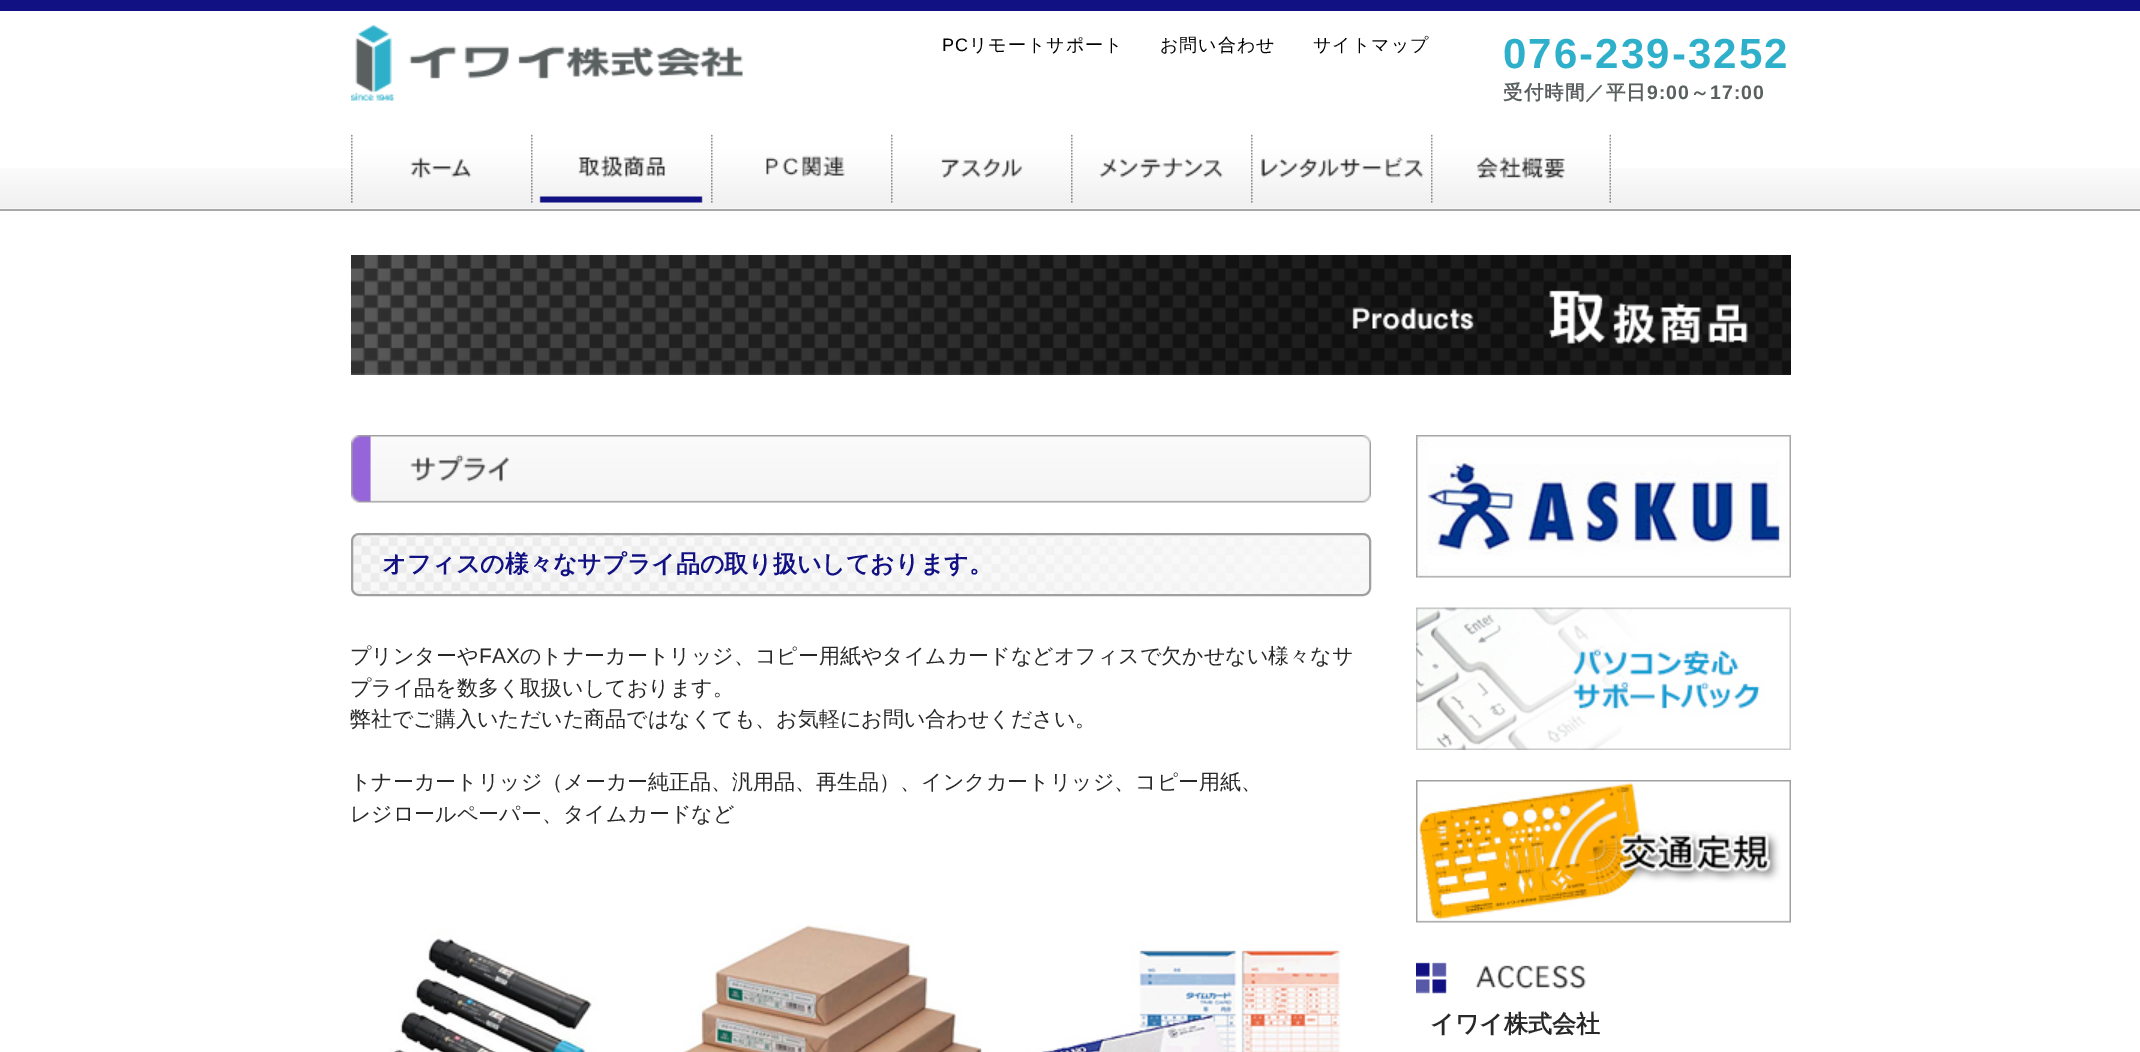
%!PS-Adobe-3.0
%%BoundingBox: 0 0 2140 1052
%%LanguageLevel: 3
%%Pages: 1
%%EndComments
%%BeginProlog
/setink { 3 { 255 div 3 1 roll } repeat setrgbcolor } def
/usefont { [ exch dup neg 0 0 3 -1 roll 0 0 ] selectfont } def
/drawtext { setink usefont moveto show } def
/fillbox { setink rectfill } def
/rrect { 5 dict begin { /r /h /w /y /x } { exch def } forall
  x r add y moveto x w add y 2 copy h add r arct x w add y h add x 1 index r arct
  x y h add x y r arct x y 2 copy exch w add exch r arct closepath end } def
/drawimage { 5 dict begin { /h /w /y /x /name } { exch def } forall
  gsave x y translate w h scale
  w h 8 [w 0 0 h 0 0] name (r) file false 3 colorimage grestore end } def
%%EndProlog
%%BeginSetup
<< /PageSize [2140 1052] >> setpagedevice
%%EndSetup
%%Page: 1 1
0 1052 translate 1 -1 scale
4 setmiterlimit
0 0 2140 1052 255 255 255 fillbox
(assets/img1.rgb) 0 168 2140 41 drawimage
0 0 2140 11 17 17 132 fillbox
0 209 2140 2 168 168 168 fillbox
(assets/img2.rgb) 351 25 392 76 drawimage
/LiberationSans-Regular 18 usefont
0 0 0 setink
942 51 moveto 1 0 (PC) ashow
/WenQuanYiZenHei-Medium 18 usefont
969 51 moveto 1 0 (リモートサポート) ashow
1160 51 moveto 1 0 (お問い合わせ) ashow
1313 51 moveto 1 0 (サイトマップ) ashow
/LiberationSans-Bold 42 usefont
47 176 202 setink
1503 68 moveto 2.1 0 (076-239-3252) ashow
/WenQuanYiZenHei-Bold 19.5 usefont
90 96 96 setink
1503 99 moveto 1 0 (受付時間／平日) ashow
/LiberationSans-Bold 19.5 usefont
1647 99 moveto 1 0 (9:00) ashow
/WenQuanYiZenHei-Bold 19.5 usefont
1690 99 moveto 1 0 (～) ashow
/LiberationSans-Bold 19.5 usefont
1710 99 moveto 1 0 (17:00) ashow
(assets/img3.rgb) 351 134 180 69 drawimage
(assets/img4.rgb) 531 134 180 69 drawimage
(assets/img5.rgb) 711 134 180 69 drawimage
(assets/img6.rgb) 891 134 180 69 drawimage
(assets/img7.rgb) 1071 134 180 69 drawimage
(assets/img8.rgb) 1251 134 180 69 drawimage
(assets/img9.rgb) 1431 134 180 69 drawimage
(assets/img10.rgb) 351 255 1440 120 drawimage
(assets/img11.rgb) 351 435 1020 68 drawimage
(assets/img12.rgb) 352 532 1019 64 drawimage
160 160 160 setink
2 setlinewidth
352 534 1018 61 7 rrect stroke
(オフィスの様々なサプライ品の取り扱いしております。) 382 572 /WenQuanYiZenHei-Bold 24 17 17 132 drawtext
(プリンターや) 350 663 /WenQuanYiZenHei-Medium 21 40 40 40 drawtext
(FAX) 479 663 /LiberationSans-Regular 21 40 40 40 drawtext
(のトナーカートリッジ、コピー用紙やタイムカードなどオフィスで欠かせない様々なサ) 520 663 /WenQuanYiZenHei-Medium 21 40 40 40 drawtext
(プライ品を数多く取扱いしております。) 350 695 /WenQuanYiZenHei-Medium 21 40 40 40 drawtext
(弊社でご購入いただいた商品ではなくても、お気軽にお問い合わせください。) 350 726 /WenQuanYiZenHei-Medium 21 40 40 40 drawtext
(トナーカートリッジ（メーカー純正品、汎用品、再生品）、インクカートリッジ、コピー用紙、) 350 789 /WenQuanYiZenHei-Medium 21 40 40 40 drawtext
(レジロールペーパー、タイムカードなど) 350 821 /WenQuanYiZenHei-Medium 21 40 40 40 drawtext
(assets/img13.rgb) 389 925 952 127 drawimage
(assets/img14.rgb) 1416 435 375 143 drawimage
(assets/img15.rgb) 1416 607 375 143 drawimage
(assets/img16.rgb) 1416 780 375 143 drawimage
(assets/img17.rgb) 1416 962 170 32 drawimage
(イワイ株式会社) 1430 1032 /WenQuanYiZenHei-Bold 24 40 40 40 drawtext
showpage
%%EOF
